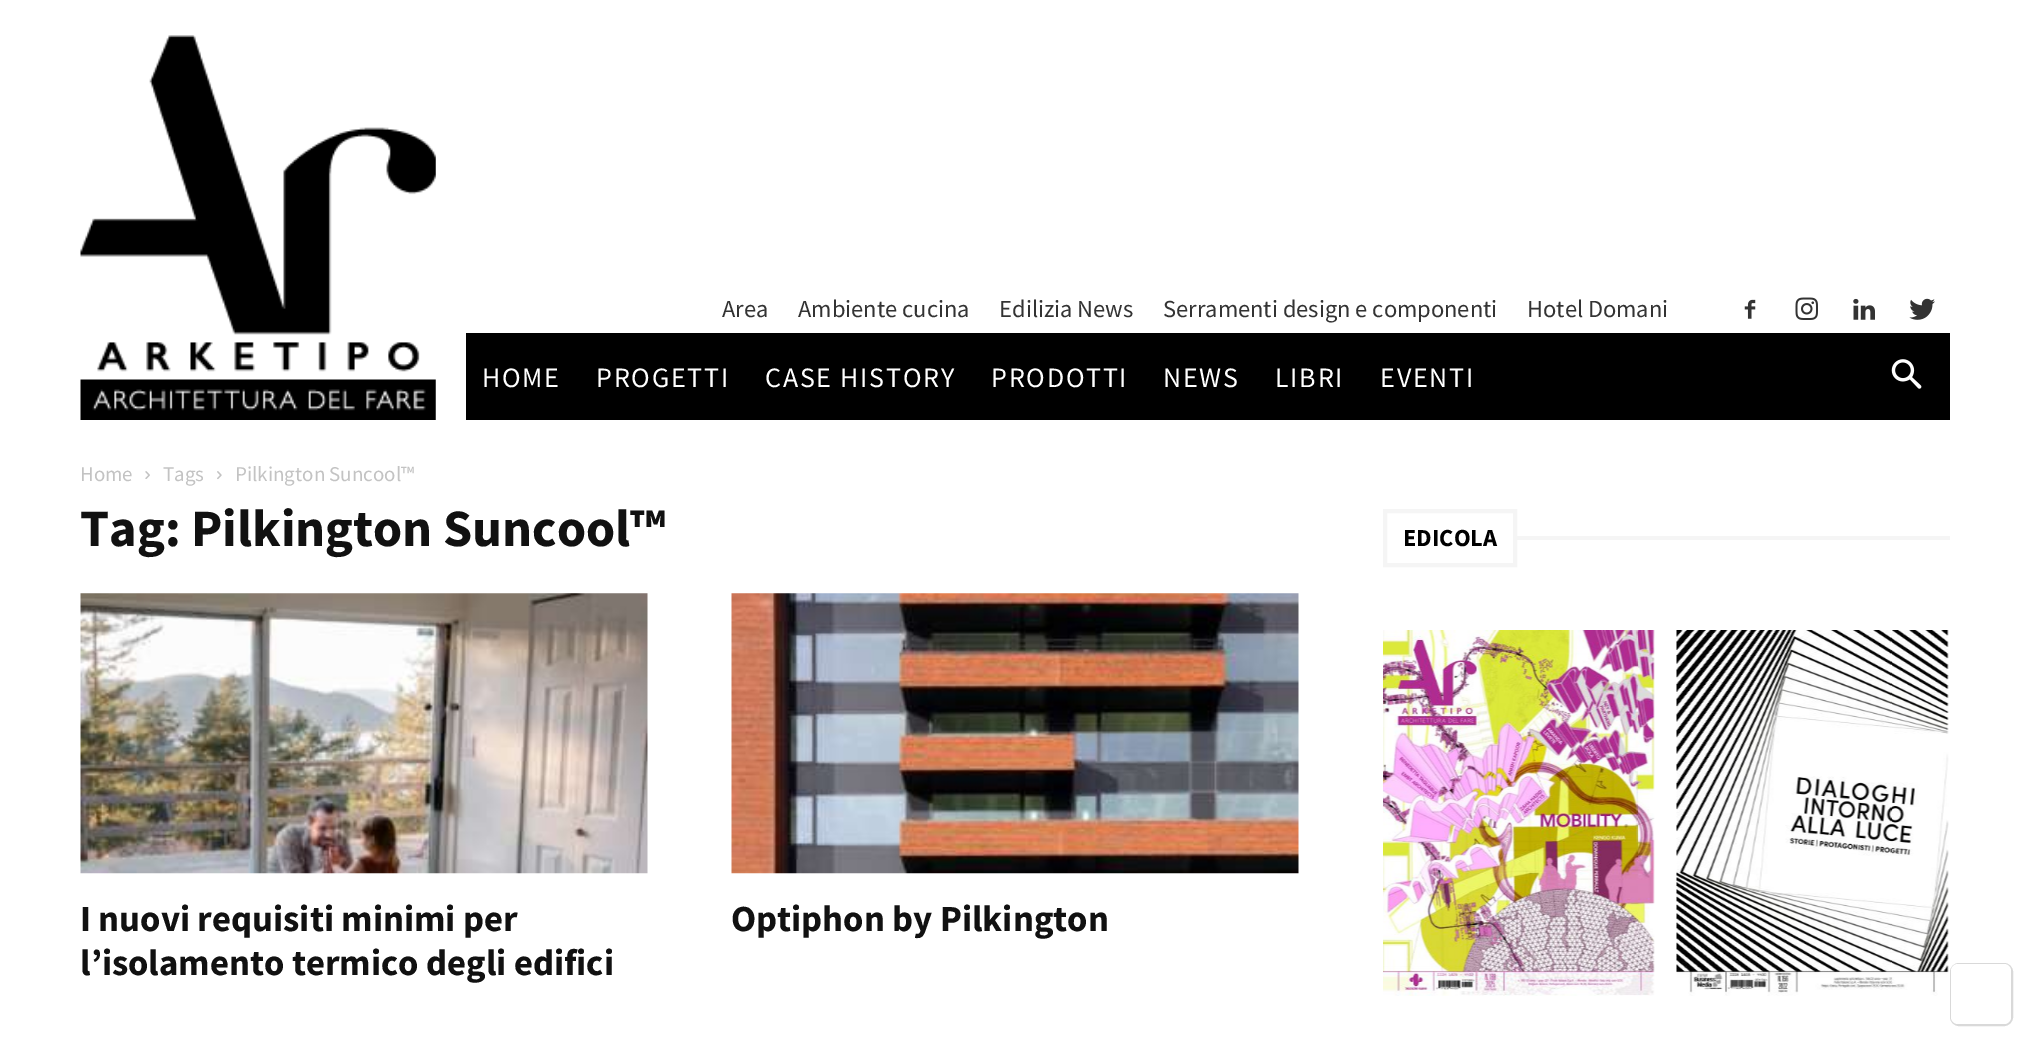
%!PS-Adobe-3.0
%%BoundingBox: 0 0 2027 1041
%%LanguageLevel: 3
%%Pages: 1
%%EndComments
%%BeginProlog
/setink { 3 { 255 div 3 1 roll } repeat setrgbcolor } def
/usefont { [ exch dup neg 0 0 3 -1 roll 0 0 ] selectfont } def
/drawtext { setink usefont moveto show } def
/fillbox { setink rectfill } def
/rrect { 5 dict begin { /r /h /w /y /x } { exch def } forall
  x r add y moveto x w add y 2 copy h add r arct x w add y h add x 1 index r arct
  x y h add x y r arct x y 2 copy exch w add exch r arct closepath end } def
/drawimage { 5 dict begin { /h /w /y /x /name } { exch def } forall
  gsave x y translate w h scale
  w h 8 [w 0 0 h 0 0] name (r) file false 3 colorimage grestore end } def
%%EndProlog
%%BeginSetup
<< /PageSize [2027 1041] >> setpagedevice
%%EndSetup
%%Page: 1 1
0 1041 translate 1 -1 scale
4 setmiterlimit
0 0 2027 1041 255 255 255 fillbox
(assets/img1.rgb) 80 35 356 385 drawimage
(Area) 722 317 /SourceSansPro-Regular 24.5 51 51 51 drawtext
(Ambiente cucina) 798 317 /SourceSansPro-Regular 24.5 51 51 51 drawtext
(Edilizia News) 999 317 /SourceSansPro-Regular 24.5 51 51 51 drawtext
(Serramenti design e componenti) 1163 317 /SourceSansPro-Regular 24.5 51 51 51 drawtext
(Hotel Domani) 1527 317 /SourceSansPro-Regular 24.5 51 51 51 drawtext
(assets/img2.rgb) 1744 299 12 20 drawimage
(assets/img3.rgb) 1795 297 23 23 drawimage
(assets/img4.rgb) 1853 298 22 22 drawimage
(assets/img5.rgb) 1909 298 26 22 drawimage
466 333 1484 87 0 0 0 fillbox
/SourceSansPro-Regular 28 usefont
255 255 255 setink
482 387 moveto 1.75 0 (HOME) ashow
596 387 moveto 1.75 0 (PROGETTI) ashow
765 387 moveto 1.75 0 (CASE HISTORY) ashow
991 387 moveto 1.75 0 (PRODOTTI) ashow
1163 387 moveto 1.75 0 (NEWS) ashow
1275 387 moveto 1.75 0 (LIBRI) ashow
1380 387 moveto 1.75 0 (EVENTI) ashow
(assets/img6.rgb) 1891 359 31 30 drawimage
(Home) 80 481 /SourceSansPro-Regular 21 195 195 195 drawtext
(assets/img7.rgb) 145 471 5 8 drawimage
(Tags) 163 481 /SourceSansPro-Regular 21 195 195 195 drawtext
(assets/img8.rgb) 217 471 5 9 drawimage
(Pilkington Suncool™) 235 481 /SourceSansPro-Regular 21 195 195 195 drawtext
(Tag: Pilkington Suncool™) 80 546 /SourceSansPro-Bold 52.5 17 17 17 drawtext
(assets/img9.rgb) 80 593 568 281 drawimage
(I nuovi requisiti minimi per) 80 931 /SourceSansPro-Bold 36.75 17 17 17 drawtext
(l’isolamento termico degli edifici) 80 975 /SourceSansPro-Bold 36.75 17 17 17 drawtext
(assets/img10.rgb) 731 593 568 281 drawimage
(Optiphon by Pilkington) 731 931 /SourceSansPro-Bold 36.75 17 17 17 drawtext
245 245 245 setink
4 setlinewidth
1385 511 130 54 rectstroke
(EDICOLA) 1403 546 /SourceSansPro-Bold 24.5 0 0 0 drawtext
1514 536 436 4 245 245 245 fillbox
(assets/img11.rgb) 1383 630 272 366 drawimage
(assets/img12.rgb) 1676 630 273 366 drawimage
217 217 217 setink
2 setlinewidth
1951 964 61 61 8 rrect stroke
255 255 255 setink
1951 964 60 60 7 rrect fill
showpage
%%EOF
